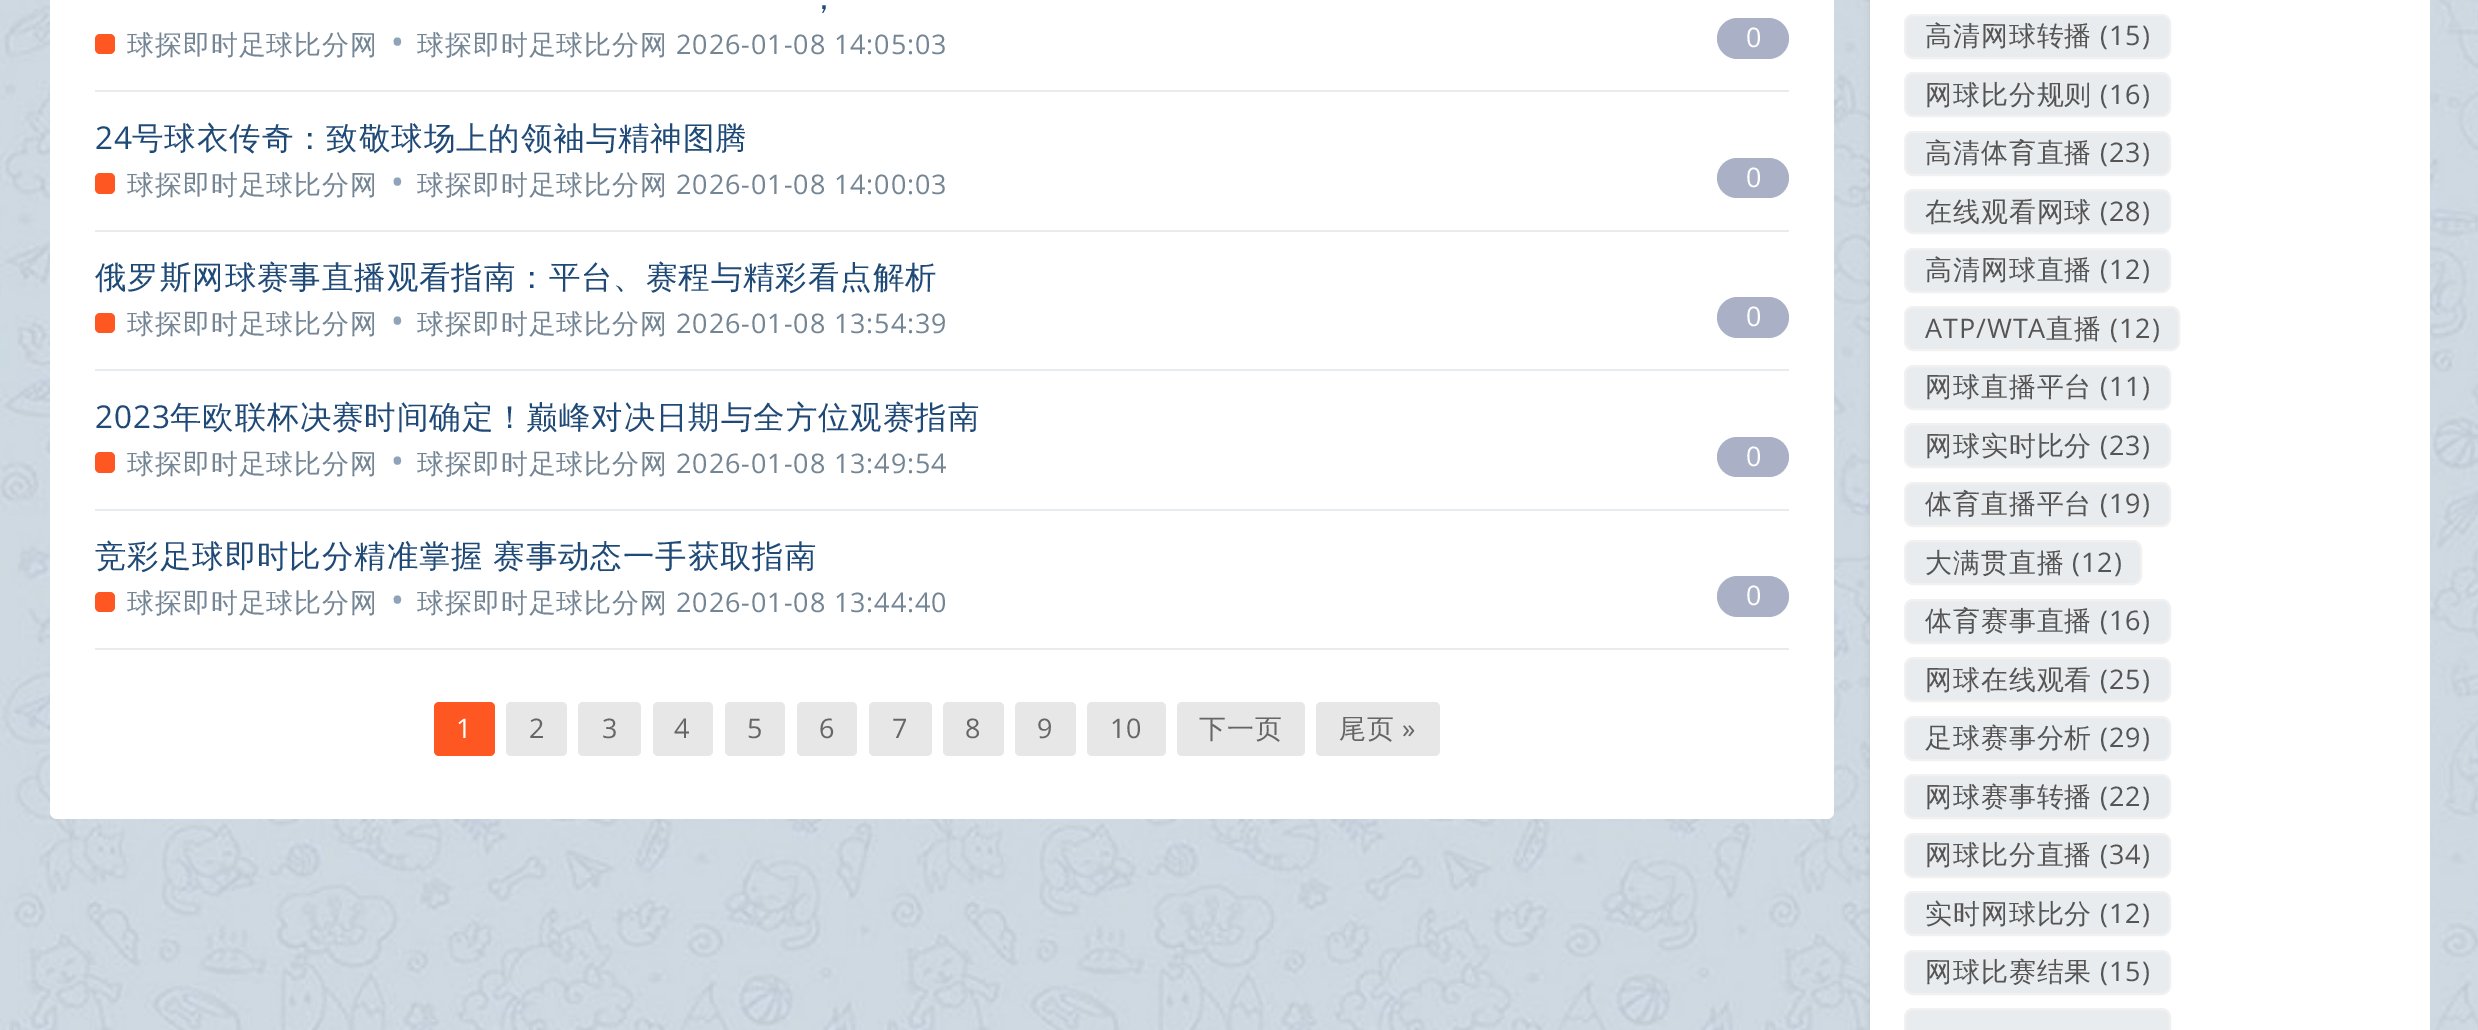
%!PS-Adobe-3.0
%%BoundingBox: 0 0 2478 1030
%%LanguageLevel: 3
%%Pages: 1
%%EndComments
%%BeginProlog
/setink { 3 { 255 div 3 1 roll } repeat setrgbcolor } def
/usefont { [ exch dup neg 0 0 3 -1 roll 0 0 ] selectfont } def
/fillbox { setink rectfill } def
/setalpha { dup .setfillconstantalpha .setstrokeconstantalpha } def
/rrect { 5 dict begin { /r /h /w /y /x } { exch def } forall
  x r add y moveto x w add y 2 copy h add r arct x w add y h add x 1 index r arct
  x y h add x y r arct x y 2 copy exch w add exch r arct closepath end } def
/softshadow { 12 dict begin { /a /b /q /h /w /y /x } { exch def } forall gsave /was 0 def
  9 -2 -9 { dup b mul 4 div /e exch def 1 sub .425 mul 2.718 exch exp 1 add a .99 .min exch div /now exch def
    1 1 now sub 1 was sub div sub setalpha /was now def
    w h .min e 2 mul add 0 gt { x e sub y e sub w e 2 mul add h e 2 mul add
      q e add b .6 mul add w h .min 2 div e add .min 0 .max rrect fill } if } for grestore end } def
/drawimage { 5 dict begin { /h /w /y /x /name } { exch def } forall
  gsave x y translate w h scale
  w h 8 [w 0 0 h 0 0] name (r) file false 3 colorimage grestore end } def
%%EndProlog
%%BeginSetup
<< /PageSize [2478 1030] /PageUsesTransparency true >> setpagedevice
%%EndSetup
%%Page: 1 1
0 .pushpdf14devicefilter
0 1030 translate 1 -1 scale
4 setmiterlimit
0 0 2478 1030 255 255 255 fillbox
(assets/img1.rgb) 0 0 2478 1030 drawimage
50 -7 1784 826 7 rrect fill
95 90 1694 2 233 236 239 fillbox
/WenQuanYiZenHei-Medium 31.5 usefont
31 73 119 setink
808 9 moveto 0.9 0 (，) ashow
255 87 34 setink
95 34 20 20 5 rrect fill
/WenQuanYiZenHei-Medium 27 usefont
116 133 148 setink
127 54 moveto 0.9 0 (球探即时足球比分网) ashow
/NotoSans-Regular 34 usefont
143 164 187 setink
391 54 moveto 0.9 0 (•) ashow
/WenQuanYiZenHei-Medium 27 usefont
116 133 148 setink
417 54 moveto 0.9 0 (球探即时足球比分网) ashow
/OpenSans-Regular 27 usefont
676 54 moveto 0.9 0 (2026-01-08 14:05:03) ashow
170 176 198 setink
1717 18 72 41 20.5 rrect fill
255 255 255 setink
1746 47 moveto 0.9 0 (0) ashow
95 230 1694 2 233 236 239 fillbox
/OpenSans-Regular 31.5 usefont
31 73 119 setink
95 149 moveto 0.9 0 (24) ashow
/WenQuanYiZenHei-Medium 31.5 usefont
132 149 moveto 0.9 0 (号球衣传奇：致敬球场上的领袖与精神图腾) ashow
255 87 34 setink
95 173 20 21 5 rrect fill
/WenQuanYiZenHei-Medium 27 usefont
116 133 148 setink
127 194 moveto 0.9 0 (球探即时足球比分网) ashow
/NotoSans-Regular 34 usefont
143 164 187 setink
391 194 moveto 0.9 0 (•) ashow
/WenQuanYiZenHei-Medium 27 usefont
116 133 148 setink
417 194 moveto 0.9 0 (球探即时足球比分网) ashow
/OpenSans-Regular 27 usefont
676 194 moveto 0.9 0 (2026-01-08 14:00:03) ashow
170 176 198 setink
1717 158 72 40 20 rrect fill
255 255 255 setink
1746 187 moveto 0.9 0 (0) ashow
95 369 1694 2 233 236 239 fillbox
/WenQuanYiZenHei-Medium 31.5 usefont
31 73 119 setink
95 288 moveto 0.9 0 (俄罗斯网球赛事直播观看指南：平台、赛程与精彩看点解析) ashow
255 87 34 setink
95 313 20 20 5 rrect fill
/WenQuanYiZenHei-Medium 27 usefont
116 133 148 setink
127 333 moveto 0.9 0 (球探即时足球比分网) ashow
/NotoSans-Regular 34 usefont
143 164 187 setink
391 333 moveto 0.9 0 (•) ashow
/WenQuanYiZenHei-Medium 27 usefont
116 133 148 setink
417 333 moveto 0.9 0 (球探即时足球比分网) ashow
/OpenSans-Regular 27 usefont
676 333 moveto 0.9 0 (2026-01-08 13:54:39) ashow
170 176 198 setink
1717 297 72 41 20.5 rrect fill
255 255 255 setink
1746 326 moveto 0.9 0 (0) ashow
95 509 1694 2 233 236 239 fillbox
/OpenSans-Regular 31.5 usefont
31 73 119 setink
95 428 moveto 0.9 0 (2023) ashow
/WenQuanYiZenHei-Medium 31.5 usefont
170 428 moveto 0.9 0 (年欧联杯决赛时间确定！巅峰对决日期与全方位观赛指南) ashow
255 87 34 setink
95 452 20 21 5 rrect fill
/WenQuanYiZenHei-Medium 27 usefont
116 133 148 setink
127 473 moveto 0.9 0 (球探即时足球比分网) ashow
/NotoSans-Regular 34 usefont
143 164 187 setink
391 473 moveto 0.9 0 (•) ashow
/WenQuanYiZenHei-Medium 27 usefont
116 133 148 setink
417 473 moveto 0.9 0 (球探即时足球比分网) ashow
/OpenSans-Regular 27 usefont
676 473 moveto 0.9 0 (2026-01-08 13:49:54) ashow
170 176 198 setink
1717 437 72 40 20 rrect fill
255 255 255 setink
1746 466 moveto 0.9 0 (0) ashow
95 648 1694 2 233 236 239 fillbox
/WenQuanYiZenHei-Medium 31.5 usefont
31 73 119 setink
95 567 moveto -1 0 32 0.9 0 (竞彩足球即时比分精准掌握 赛事动态一手获取指南) awidthshow
255 87 34 setink
95 592 20 20 5 rrect fill
/WenQuanYiZenHei-Medium 27 usefont
116 133 148 setink
127 612 moveto 0.9 0 (球探即时足球比分网) ashow
/NotoSans-Regular 34 usefont
143 164 187 setink
391 612 moveto 0.9 0 (•) ashow
/WenQuanYiZenHei-Medium 27 usefont
116 133 148 setink
417 612 moveto 0.9 0 (球探即时足球比分网) ashow
/OpenSans-Regular 27 usefont
676 612 moveto 0.9 0 (2026-01-08 13:44:40) ashow
170 176 198 setink
1717 576 72 41 20.5 rrect fill
255 255 255 setink
1746 605 moveto 0.9 0 (0) ashow
255 87 34 setink
434 702 61 54 5 rrect fill
255 255 255 setink
456 738 moveto 0.9 0 (1) ashow
231 231 231 setink
506 702 61 54 5 rrect fill
102 102 102 setink
529 738 moveto 0.9 0 (2) ashow
231 231 231 setink
578 702 63 54 5 rrect fill
102 102 102 setink
602 738 moveto 0.9 0 (3) ashow
231 231 231 setink
653 702 60 54 5 rrect fill
102 102 102 setink
674 738 moveto 0.9 0 (4) ashow
231 231 231 setink
725 702 60 54 5 rrect fill
102 102 102 setink
747 738 moveto 0.9 0 (5) ashow
231 231 231 setink
797 702 60 54 5 rrect fill
102 102 102 setink
819 738 moveto 0.9 0 (6) ashow
231 231 231 setink
869 702 63 54 5 rrect fill
102 102 102 setink
892 738 moveto 0.9 0 (7) ashow
231 231 231 setink
943 702 61 54 5 rrect fill
102 102 102 setink
965 738 moveto 0.9 0 (8) ashow
231 231 231 setink
1015 702 61 54 5 rrect fill
102 102 102 setink
1037 738 moveto 0.9 0 (9) ashow
231 231 231 setink
1087 702 79 54 5 rrect fill
102 102 102 setink
1110 738 moveto 0.9 0 (10) ashow
231 231 231 setink
1177 702 128 54 5 rrect fill
/WenQuanYiZenHei-Medium 27 usefont
102 102 102 setink
1199 738 moveto 0.9 0 (下一页) ashow
231 231 231 setink
1316 702 124 54 5 rrect fill
102 102 102 setink
1339 738 moveto 0.9 0 (尾页) ashow
/OpenSans-Regular 27 usefont
1402 738 moveto 0.9 0 (») ashow
gsave
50 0 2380 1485 rectclip
26 26 26 setink
1870 -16 560 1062 5 3.5 0.1 softshadow
grestore
1870 0 560 1030 255 255 255 fillbox
233 236 239 setink
1905 15 265 43 8 rrect gsave fill grestore
241 241 241 setink
2 setlinewidth
stroke
/WenQuanYiZenHei-Medium 27 usefont
85 85 85 setink
1925 45 moveto 0.9 0 (高清网球转播) ashow
/OpenSans-Regular 27 usefont
2100 45 moveto 0.9 0 (\(15\)) ashow
233 236 239 setink
1905 73 265 43 8 rrect gsave fill grestore
241 241 241 setink
stroke
/WenQuanYiZenHei-Medium 27 usefont
85 85 85 setink
1925 104 moveto 0.9 0 (网球比分规则) ashow
/OpenSans-Regular 27 usefont
2100 104 moveto 0.9 0 (\(16\)) ashow
233 236 239 setink
1905 132 265 43 8 rrect gsave fill grestore
241 241 241 setink
stroke
/WenQuanYiZenHei-Medium 27 usefont
85 85 85 setink
1925 162 moveto 0.9 0 (高清体育直播) ashow
/OpenSans-Regular 27 usefont
2100 162 moveto 0.9 0 (\(23\)) ashow
233 236 239 setink
1905 190 265 43 8 rrect gsave fill grestore
241 241 241 setink
stroke
/WenQuanYiZenHei-Medium 27 usefont
85 85 85 setink
1925 221 moveto 0.9 0 (在线观看网球) ashow
/OpenSans-Regular 27 usefont
2100 221 moveto 0.9 0 (\(28\)) ashow
233 236 239 setink
1905 249 265 43 8 rrect gsave fill grestore
241 241 241 setink
stroke
/WenQuanYiZenHei-Medium 27 usefont
85 85 85 setink
1925 279 moveto 0.9 0 (高清网球直播) ashow
/OpenSans-Regular 27 usefont
2100 279 moveto 0.9 0 (\(12\)) ashow
233 236 239 setink
1905 307 274 43 8 rrect gsave fill grestore
241 241 241 setink
stroke
85 85 85 setink
1925 338 moveto 0.9 0 (ATP/WTA) ashow
/WenQuanYiZenHei-Medium 27 usefont
2046 338 moveto 0.9 0 (直播) ashow
/OpenSans-Regular 27 usefont
2110 338 moveto 0.9 0 (\(12\)) ashow
233 236 239 setink
1905 366 265 43 8 rrect gsave fill grestore
241 241 241 setink
stroke
/WenQuanYiZenHei-Medium 27 usefont
85 85 85 setink
1925 396 moveto 0.9 0 (网球直播平台) ashow
/OpenSans-Regular 27 usefont
2100 396 moveto 0.9 0 (\(11\)) ashow
233 236 239 setink
1905 424 265 43 8 rrect gsave fill grestore
241 241 241 setink
stroke
/WenQuanYiZenHei-Medium 27 usefont
85 85 85 setink
1925 455 moveto 0.9 0 (网球实时比分) ashow
/OpenSans-Regular 27 usefont
2100 455 moveto 0.9 0 (\(23\)) ashow
233 236 239 setink
1905 483 265 43 8 rrect gsave fill grestore
241 241 241 setink
stroke
/WenQuanYiZenHei-Medium 27 usefont
85 85 85 setink
1925 513 moveto 0.9 0 (体育直播平台) ashow
/OpenSans-Regular 27 usefont
2100 513 moveto 0.9 0 (\(19\)) ashow
233 236 239 setink
1905 541 236 43 8 rrect gsave fill grestore
241 241 241 setink
stroke
/WenQuanYiZenHei-Medium 27 usefont
85 85 85 setink
1925 572 moveto 0.9 0 (大满贯直播) ashow
/OpenSans-Regular 27 usefont
2072 572 moveto 0.9 0 (\(12\)) ashow
233 236 239 setink
1905 600 265 43 8 rrect gsave fill grestore
241 241 241 setink
stroke
/WenQuanYiZenHei-Medium 27 usefont
85 85 85 setink
1925 630 moveto 0.9 0 (体育赛事直播) ashow
/OpenSans-Regular 27 usefont
2100 630 moveto 0.9 0 (\(16\)) ashow
233 236 239 setink
1905 658 265 43 8 rrect gsave fill grestore
241 241 241 setink
stroke
/WenQuanYiZenHei-Medium 27 usefont
85 85 85 setink
1925 689 moveto 0.9 0 (网球在线观看) ashow
/OpenSans-Regular 27 usefont
2100 689 moveto 0.9 0 (\(25\)) ashow
233 236 239 setink
1905 717 265 43 8 rrect gsave fill grestore
241 241 241 setink
stroke
/WenQuanYiZenHei-Medium 27 usefont
85 85 85 setink
1925 747 moveto 0.9 0 (足球赛事分析) ashow
/OpenSans-Regular 27 usefont
2100 747 moveto 0.9 0 (\(29\)) ashow
233 236 239 setink
1905 775 265 43 8 rrect gsave fill grestore
241 241 241 setink
stroke
/WenQuanYiZenHei-Medium 27 usefont
85 85 85 setink
1925 806 moveto 0.9 0 (网球赛事转播) ashow
/OpenSans-Regular 27 usefont
2100 806 moveto 0.9 0 (\(22\)) ashow
233 236 239 setink
1905 834 265 43 8 rrect gsave fill grestore
241 241 241 setink
stroke
/WenQuanYiZenHei-Medium 27 usefont
85 85 85 setink
1925 864 moveto 0.9 0 (网球比分直播) ashow
/OpenSans-Regular 27 usefont
2100 864 moveto 0.9 0 (\(34\)) ashow
233 236 239 setink
1905 892 265 43 8 rrect gsave fill grestore
241 241 241 setink
stroke
/WenQuanYiZenHei-Medium 27 usefont
85 85 85 setink
1925 923 moveto 0.9 0 (实时网球比分) ashow
/OpenSans-Regular 27 usefont
2100 923 moveto 0.9 0 (\(12\)) ashow
233 236 239 setink
1905 951 265 43 8 rrect gsave fill grestore
241 241 241 setink
stroke
/WenQuanYiZenHei-Medium 27 usefont
85 85 85 setink
1925 981 moveto 0.9 0 (网球比赛结果) ashow
/OpenSans-Regular 27 usefont
2100 981 moveto 0.9 0 (\(15\)) ashow
233 236 239 setink
1905 1009 265 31 8 rrect gsave fill grestore
241 241 241 setink
stroke
.poppdf14devicefilter showpage
%%EOF
